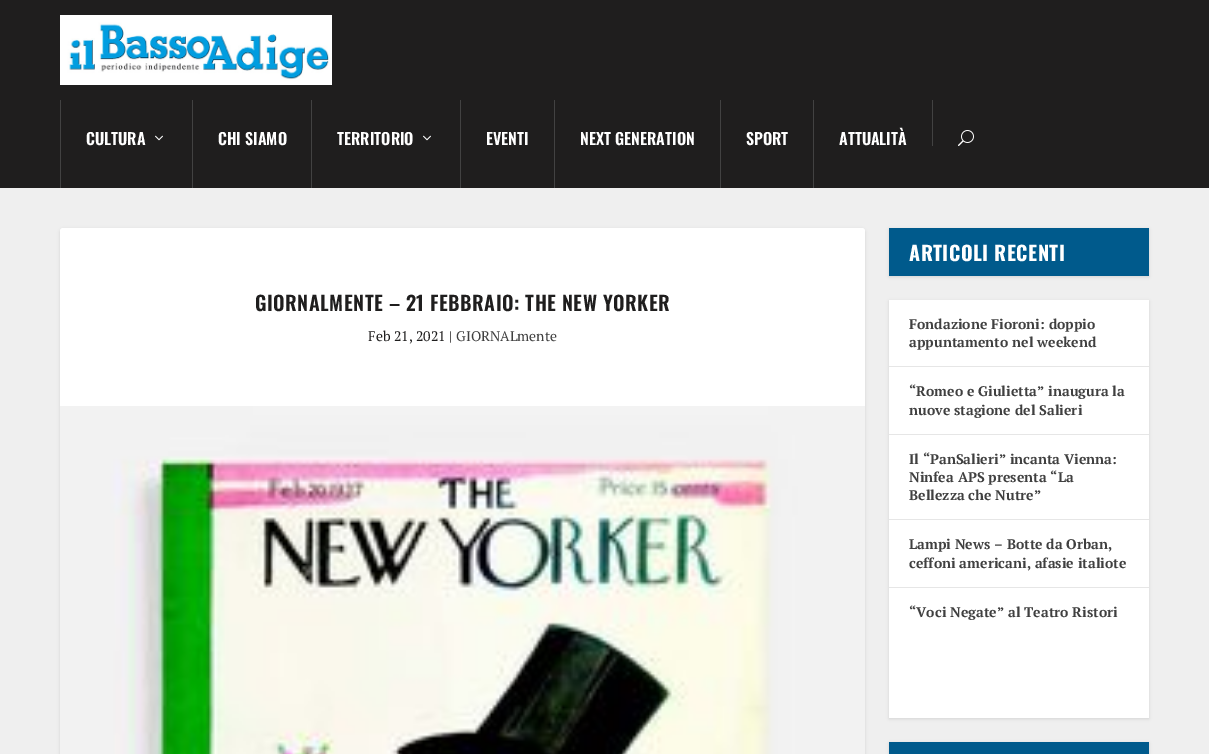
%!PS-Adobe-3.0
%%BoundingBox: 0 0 1209 754
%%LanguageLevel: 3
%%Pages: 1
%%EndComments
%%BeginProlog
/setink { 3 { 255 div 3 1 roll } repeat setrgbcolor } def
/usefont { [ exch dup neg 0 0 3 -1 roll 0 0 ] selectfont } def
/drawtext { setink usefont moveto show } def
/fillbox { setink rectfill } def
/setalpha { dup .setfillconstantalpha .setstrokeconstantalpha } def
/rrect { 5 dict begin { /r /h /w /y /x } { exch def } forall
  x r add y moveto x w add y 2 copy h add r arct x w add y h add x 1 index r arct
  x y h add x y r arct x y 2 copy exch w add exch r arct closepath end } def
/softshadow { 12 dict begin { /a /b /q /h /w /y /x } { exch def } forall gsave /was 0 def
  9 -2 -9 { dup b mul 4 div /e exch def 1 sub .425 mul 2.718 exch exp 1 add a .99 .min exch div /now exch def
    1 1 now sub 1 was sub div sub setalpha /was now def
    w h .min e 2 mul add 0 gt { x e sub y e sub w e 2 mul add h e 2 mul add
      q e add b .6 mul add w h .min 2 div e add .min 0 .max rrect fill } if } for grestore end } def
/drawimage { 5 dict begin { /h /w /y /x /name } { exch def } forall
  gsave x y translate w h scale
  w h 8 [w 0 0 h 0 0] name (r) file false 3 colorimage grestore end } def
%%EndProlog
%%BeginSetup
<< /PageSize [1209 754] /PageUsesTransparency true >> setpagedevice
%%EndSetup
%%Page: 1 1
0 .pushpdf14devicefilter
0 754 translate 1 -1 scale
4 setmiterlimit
0 0 1209 754 239 239 239 fillbox
0 0 1209 188 31 30 30 fillbox
(assets/img1.rgb) 60 15 272 70 drawimage
60 100 1 88 66 66 66 fillbox
(CULTURA) 86 145 /Oswald-SemiBold 16 255 255 255 drawtext
(assets/img2.rgb) 155 135 8 6 drawimage
192 100 1 88 66 66 66 fillbox
(CHI SIAMO) 218 145 /Oswald-SemiBold 16 255 255 255 drawtext
311 100 1 88 66 66 66 fillbox
(TERRITORIO) 337 145 /Oswald-SemiBold 16 255 255 255 drawtext
(assets/img2.rgb) 423 135 8 6 drawimage
460 100 1 88 66 66 66 fillbox
(EVENTI) 486 145 /Oswald-SemiBold 16 255 255 255 drawtext
554 100 1 88 66 66 66 fillbox
(NEXT GENERATION) 580 145 /Oswald-SemiBold 16 255 255 255 drawtext
720 100 1 88 66 66 66 fillbox
(SPORT) 746 145 /Oswald-SemiBold 16 255 255 255 drawtext
813 100 1 88 66 66 66 fillbox
(ATTUALITÀ) 839 145 /Oswald-SemiBold 16 255 255 255 drawtext
932 100 1 46 66 66 66 fillbox
(assets/img3.rgb) 958 130 16 16 drawimage
0 0 0 setink
60 229 805 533 3 1.5 0.1 softshadow
255 255 255 setink
60 228 805 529 3 rrect fill
/Oswald-SemiBold 20 usefont
31 30 30 setink
255 311 moveto 0.5 0 (GIORNALMENTE – 21 FEBBRAIO: THE NEW YORKER) ashow
(Feb 21, 2021 |) 368 341 /PTSerif-Regular 14 31 30 30 drawtext
(GIORNALmente) 456 341 /PTSerif-Regular 14 64 64 64 drawtext
(assets/img4.rgb) 60 406 805 348 drawimage
0 0 0 setink
889 229 260 48 0 1.5 0.1 softshadow
889 228 260 48 0 90 140 fillbox
/Oswald-Bold 20 usefont
255 255 255 setink
909 261 moveto 0.5 0 (ARTICOLI RECENTI) ashow
0 0 0 setink
889 301 260 418 0 1.5 0.1 softshadow
889 300 260 418 255 255 255 fillbox
889 366 260 1 230 230 230 fillbox
(Fondazione Fioroni: doppio) 909 329 /PTSerif-Bold 14 64 64 64 drawtext
(appuntamento nel weekend) 909 347 /PTSerif-Bold 14 64 64 64 drawtext
889 434 260 1 230 230 230 fillbox
(“Romeo e Giulietta” inaugura la) 909 396 /PTSerif-Bold 14 64 64 64 drawtext
(nuove stagione del Salieri) 909 415 /PTSerif-Bold 14 64 64 64 drawtext
889 519 260 1 230 230 230 fillbox
(Il “PanSalieri” incanta Vienna:) 909 464 /PTSerif-Bold 14 64 64 64 drawtext
(Ninfea APS presenta “La) 909 482 /PTSerif-Bold 14 64 64 64 drawtext
(Bellezza che Nutre”) 909 500 /PTSerif-Bold 14 64 64 64 drawtext
889 587 260 1 230 230 230 fillbox
(Lampi News – Botte da Orban,) 909 549 /PTSerif-Bold 14 64 64 64 drawtext
(ceffoni americani, afasie italiote) 909 568 /PTSerif-Bold 14 64 64 64 drawtext
(“Voci Negate” al Teatro Ristori) 909 617 /PTSerif-Bold 14 64 64 64 drawtext
0 0 0 setink
889 743 260 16 0 1.5 0.1 softshadow
889 742 260 12 0 90 140 fillbox
.poppdf14devicefilter showpage
%%EOF
